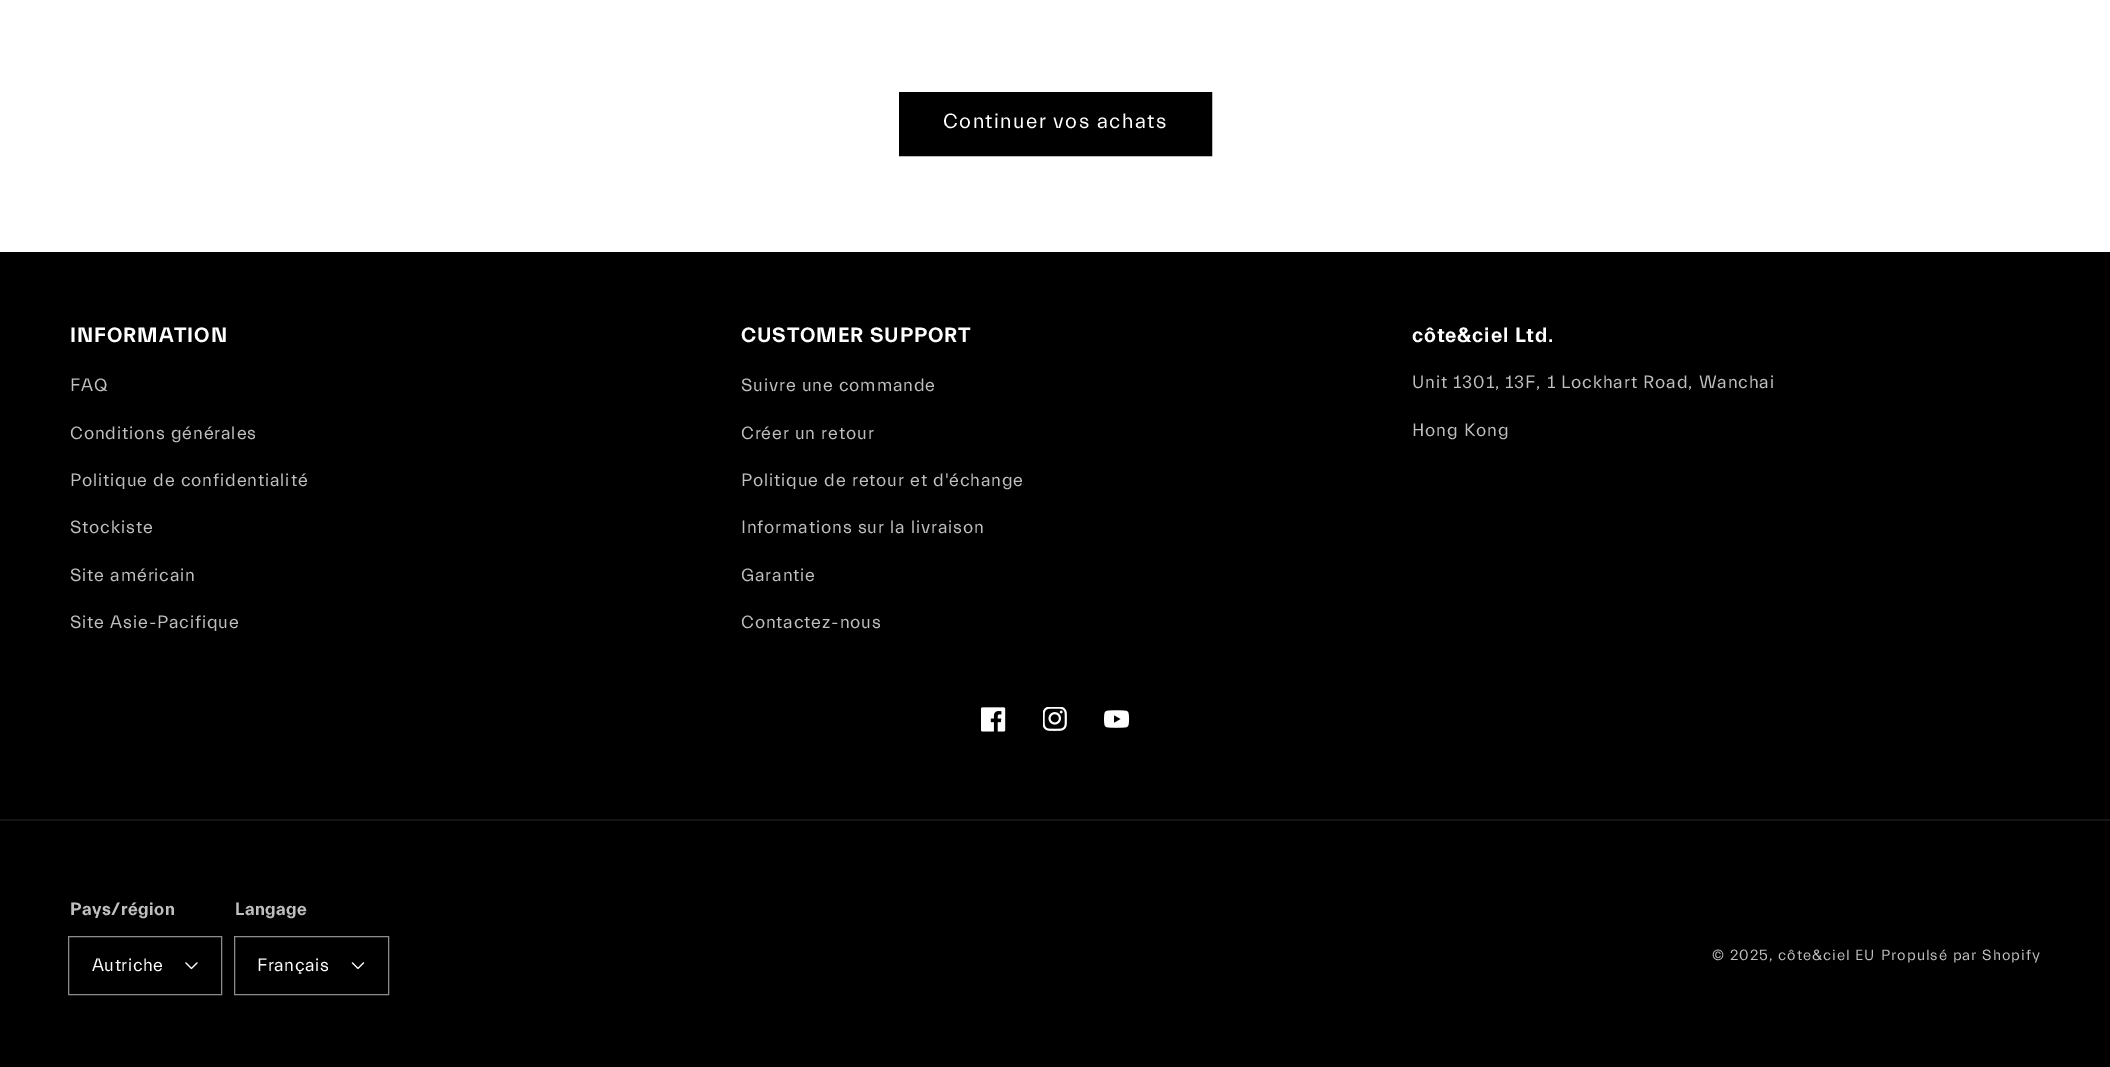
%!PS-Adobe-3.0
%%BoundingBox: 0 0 2110 1067
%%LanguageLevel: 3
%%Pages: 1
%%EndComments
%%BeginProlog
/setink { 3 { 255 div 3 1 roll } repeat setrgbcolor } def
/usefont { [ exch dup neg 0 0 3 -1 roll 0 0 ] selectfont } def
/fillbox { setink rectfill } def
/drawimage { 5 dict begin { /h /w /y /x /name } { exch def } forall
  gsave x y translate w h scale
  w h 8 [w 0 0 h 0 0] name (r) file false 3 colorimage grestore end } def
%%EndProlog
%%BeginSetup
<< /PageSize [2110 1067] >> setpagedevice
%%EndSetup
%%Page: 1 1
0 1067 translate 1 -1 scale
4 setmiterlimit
0 0 2110 1067 255 255 255 fillbox
0 0 0 setink
2 setlinewidth
900 93 311 62 rectstroke
901 94 309 60 0 0 0 fillbox
/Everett-Regular 20.9 usefont
255 255 255 setink
943 128 moveto 1.4 0 (Continuer vos achats) ashow
0 252 2110 815 0 0 0 fillbox
/Everett-Bold 21 usefont
255 255 255 setink
70 342 moveto 0.85 0 (INFORMATION) ashow
/Everett-Regular 18 usefont
191 191 191 setink
70 391 moveto 0.85 0 (FAQ) ashow
70 439 moveto 0.85 0 (Conditions générales) ashow
70 486 moveto 0.85 0 (Politique de confidentialité) ashow
70 533 moveto 0.85 0 (Stockiste) ashow
70 581 moveto 0.85 0 (Site américain) ashow
70 628 moveto 0.85 0 (Site Asie-Pacifique) ashow
/Everett-Bold 21 usefont
255 255 255 setink
741 342 moveto 0.85 0 (CUSTOMER SUPPORT) ashow
/Everett-Regular 18 usefont
191 191 191 setink
741 391 moveto 0.85 0 (Suivre une commande) ashow
741 439 moveto 0.85 0 (Créer un retour) ashow
741 486 moveto 0.85 0 (Politique de retour et d'échange) ashow
741 533 moveto 0.85 0 (Informations sur la livraison) ashow
741 581 moveto 0.85 0 (Garantie) ashow
741 628 moveto 0.85 0 (Contactez-nous) ashow
/Everett-Bold 21 usefont
255 255 255 setink
1412 342 moveto 0.85 0 (côte&ciel Ltd.) ashow
/Everett-Regular 18 usefont
191 191 191 setink
1412 388 moveto 0.85 0 (Unit 1301, 13F, 1 Lockhart Road, Wanchai) ashow
1412 436 moveto 0.85 0 (Hong Kong) ashow
(assets/img1.rgb) 981 707 25 25 drawimage
(assets/img2.rgb) 1043 707 24 24 drawimage
(assets/img3.rgb) 1104 710 26 18 drawimage
0 819 2110 2 20 20 20 fillbox
/Everett-Bold 18 usefont
191 191 191 setink
70 915 moveto 0.5 0 (Pays/région) ashow
140 140 140 setink
1 setlinewidth
68.5 936.5 153 58 rectstroke
/Everett-Regular 18 usefont
255 255 255 setink
92 971 moveto 0.5 0 (Autriche) ashow
(assets/img4.rgb) 185 962 13 8 drawimage
/Everett-Bold 18 usefont
191 191 191 setink
235 915 moveto 0.5 0 (Langage) ashow
140 140 140 setink
234.5 936.5 154 58 rectstroke
/Everett-Regular 18 usefont
255 255 255 setink
257 971 moveto 0.5 0 (Français) ashow
(assets/img5.rgb) 351 962 14 8 drawimage
/Everett-Regular 15 usefont
191 191 191 setink
1712 960 moveto 1 0 (© 2025, côte&ciel EU) ashow
1881 960 moveto 1 0 (Propulsé par Shopify) ashow
showpage
%%EOF
